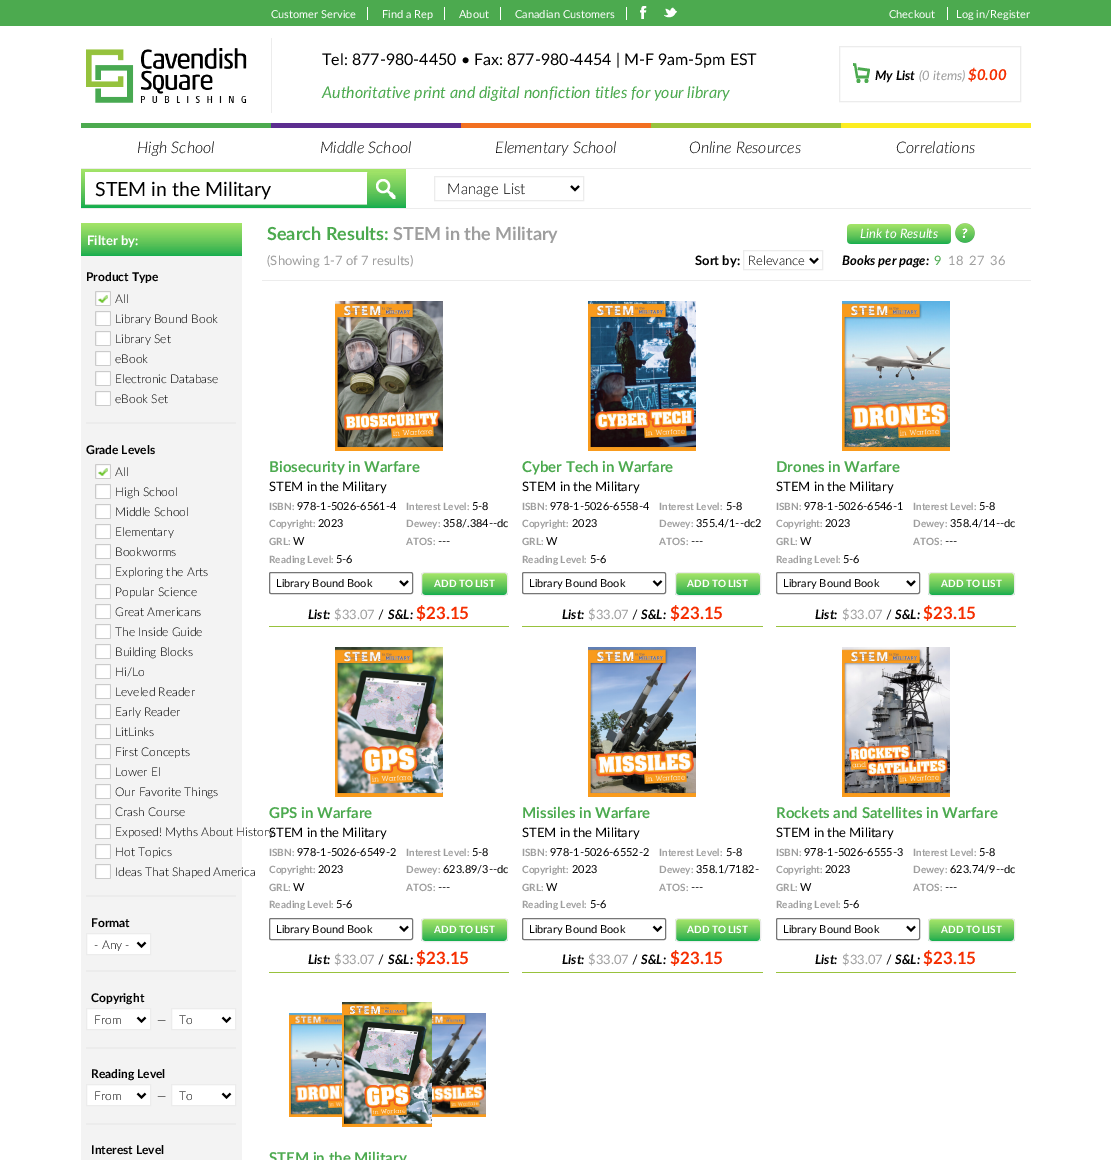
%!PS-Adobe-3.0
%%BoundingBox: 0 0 1111 1160
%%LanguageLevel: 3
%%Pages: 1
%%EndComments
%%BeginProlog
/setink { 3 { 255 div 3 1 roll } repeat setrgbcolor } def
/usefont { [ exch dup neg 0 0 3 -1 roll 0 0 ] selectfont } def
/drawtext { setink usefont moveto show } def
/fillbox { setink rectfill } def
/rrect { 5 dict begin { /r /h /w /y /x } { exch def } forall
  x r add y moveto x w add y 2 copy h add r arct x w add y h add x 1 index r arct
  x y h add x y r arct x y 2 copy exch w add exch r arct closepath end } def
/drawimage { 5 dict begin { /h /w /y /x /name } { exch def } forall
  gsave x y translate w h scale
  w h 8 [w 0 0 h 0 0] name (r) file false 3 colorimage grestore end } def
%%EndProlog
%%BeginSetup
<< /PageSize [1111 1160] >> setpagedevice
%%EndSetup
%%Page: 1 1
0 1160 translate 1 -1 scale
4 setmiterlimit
0 0 1111 1160 255 255 255 fillbox
0 0 1111 26 76 170 79 fillbox
(Customer Service) 271 18 /Lato-Regular 11 255 255 255 drawtext
367 7 1 13 255 255 255 fillbox
(Find a Rep) 382 18 /Lato-Regular 11 255 255 255 drawtext
444 7 1 13 255 255 255 fillbox
(About) 459 18 /Lato-Regular 11 255 255 255 drawtext
500 7 1 13 255 255 255 fillbox
(Canadian Customers) 515 18 /Lato-Regular 11 255 255 255 drawtext
626 7 1 13 255 255 255 fillbox
(assets/img1.rgb) 640 6 7 13 drawimage
(assets/img2.rgb) 664 7 13 11 drawimage
(Checkout) 889 18 /Lato-Regular 11 255 255 255 drawtext
947 7 1 13 255 255 255 fillbox
(Log in/Register) 956 18 /Lato-Regular 11 255 255 255 drawtext
271 38 1 75 236 236 236 fillbox
(assets/img3.rgb) 86 48 161 55 drawimage
(Tel: 877-980-4450 • Fax: 877-980-4454 | M-F 9am-5pm EST) 322 65 /Lato-Regular 16 0 0 0 drawtext
(Authoritative print and digital nonfiction titles for your library) 322 98 /Lato-Italic 16 76 170 79 drawtext
236 236 236 setink
839.5 46.5 181 55 rectstroke
(assets/img4.rgb) 853 63 17 20 drawimage
(My List) 875 80 /Lato-BoldItalic 13 0 0 0 drawtext
(\(0 items\)) 919 80 /Lato-Italic 13 158 158 158 drawtext
($0.00) 968 80 /Lato-BoldItalic 15 245 46 0 drawtext
81 123 190 5 76 170 79 fillbox
(High School) 137 153 /Lato-LightItalic 16 0 0 0 drawtext
271 123 190 5 92 46 143 fillbox
(Middle School) 320 153 /Lato-LightItalic 16 0 0 0 drawtext
461 123 190 5 242 112 33 fillbox
(Elementary School) 495 153 /Lato-LightItalic 16 0 0 0 drawtext
651 123 190 5 152 194 61 fillbox
(Online Resources) 689 153 /Lato-LightItalic 16 0 0 0 drawtext
841 123 190 5 252 237 33 fillbox
(Correlations) 896 153 /Lato-LightItalic 16 0 0 0 drawtext
81 168 950 1 236 236 236 fillbox
(assets/img6.rgb) 81 169 325 39 drawimage
(assets/img5.rgb) 367 172 37 35 drawimage
(STEM in the Military) 95 196 /Lato-Regular 19.5 0 0 0 drawtext
(assets/img7.rgb) 376 179 20 20 drawimage
236 236 236 setink
434.5 176.5 149 24 rectstroke
0 0 0 setink
2 setlinewidth
571 186 moveto 575 190 lineto 579 186 lineto stroke
(Manage List) 447 194 /Lato-Light 15 0 0 0 drawtext
81 208 950 1 236 236 236 fillbox
81 256 161 904 243 243 243 fillbox
(assets/img8.rgb) 81 223 161 33 drawimage
(Filter by:) 87 245 /Lato-Bold 13 255 255 255 drawtext
86 422 150 2 236 236 236 fillbox
(Product Type) 86 281 /Lato-Bold 12 0 0 0 drawtext
(assets/img9.rgb) 95 291 16 15 drawimage
(All) 115 303 /Lato-Light 12 0 0 0 drawtext
(assets/img10.rgb) 95 311 16 15 drawimage
(Library Bound Book) 115 323 /Lato-Light 12 0 0 0 drawtext
(assets/img10.rgb) 95 331 16 15 drawimage
(Library Set) 115 343 /Lato-Light 12 0 0 0 drawtext
(assets/img10.rgb) 95 351 16 15 drawimage
(eBook) 115 363 /Lato-Light 12 0 0 0 drawtext
(assets/img10.rgb) 95 371 16 15 drawimage
(Electronic Database) 115 383 /Lato-Light 12 0 0 0 drawtext
(assets/img10.rgb) 95 391 16 15 drawimage
(eBook Set) 115 403 /Lato-Light 12 0 0 0 drawtext
86 895 150 2 236 236 236 fillbox
(Grade Levels) 86 454 /Lato-Bold 12 0 0 0 drawtext
(assets/img9.rgb) 95 464 16 15 drawimage
(All) 115 476 /Lato-Light 12 0 0 0 drawtext
(assets/img10.rgb) 95 484 16 15 drawimage
(High School) 115 496 /Lato-Light 12 0 0 0 drawtext
(assets/img10.rgb) 95 504 16 15 drawimage
(Middle School) 115 516 /Lato-Light 12 0 0 0 drawtext
(assets/img10.rgb) 95 524 16 15 drawimage
(Elementary) 115 536 /Lato-Light 12 0 0 0 drawtext
(assets/img10.rgb) 95 544 16 15 drawimage
(Bookworms) 115 556 /Lato-Light 12 0 0 0 drawtext
(assets/img10.rgb) 95 564 16 15 drawimage
(Exploring the Arts) 115 576 /Lato-Light 12 0 0 0 drawtext
(assets/img10.rgb) 95 584 16 15 drawimage
(Popular Science) 115 596 /Lato-Light 12 0 0 0 drawtext
(assets/img10.rgb) 95 604 16 15 drawimage
(Great Americans) 115 616 /Lato-Light 12 0 0 0 drawtext
(assets/img10.rgb) 95 624 16 15 drawimage
(The Inside Guide) 115 636 /Lato-Light 12 0 0 0 drawtext
(assets/img10.rgb) 95 644 16 15 drawimage
(Building Blocks) 115 656 /Lato-Light 12 0 0 0 drawtext
(assets/img10.rgb) 95 664 16 15 drawimage
(Hi/Lo) 115 676 /Lato-Light 12 0 0 0 drawtext
(assets/img10.rgb) 95 684 16 15 drawimage
(Leveled Reader) 115 696 /Lato-Light 12 0 0 0 drawtext
(assets/img10.rgb) 95 704 16 15 drawimage
(Early Reader) 115 716 /Lato-Light 12 0 0 0 drawtext
(assets/img10.rgb) 95 724 16 15 drawimage
(LitLinks) 115 736 /Lato-Light 12 0 0 0 drawtext
(assets/img10.rgb) 95 744 16 15 drawimage
(First Concepts) 115 756 /Lato-Light 12 0 0 0 drawtext
(assets/img10.rgb) 95 764 16 15 drawimage
(Lower El) 115 776 /Lato-Light 12 0 0 0 drawtext
(assets/img10.rgb) 95 784 16 15 drawimage
(Our Favorite Things) 115 796 /Lato-Light 12 0 0 0 drawtext
(assets/img10.rgb) 95 804 16 15 drawimage
(Crash Course) 115 816 /Lato-Light 12 0 0 0 drawtext
(assets/img10.rgb) 95 824 16 15 drawimage
(Exposed! Myths About History) 115 836 /Lato-Light 12 0 0 0 drawtext
(assets/img10.rgb) 95 844 16 15 drawimage
(Hot Topics) 115 856 /Lato-Light 12 0 0 0 drawtext
(assets/img10.rgb) 95 864 16 15 drawimage
(Ideas That Shaped America) 115 876 /Lato-Light 12 0 0 0 drawtext
86 970 150 2 236 236 236 fillbox
(Format) 91 927 /Lato-Bold 12 0 0 0 drawtext
255 255 255 setink
86.5 933.5 moveto 150.5 933.5 lineto 150.5 954.5 lineto 86.5 954.5 lineto closepath gsave fill grestore
236 236 236 setink
1 setlinewidth
stroke
0 0 0 setink
2 setlinewidth
137.5 942.5 moveto 141.5 946.5 lineto 145.5 942.5 lineto stroke
(- Any -) 94 949 /Lato-Light 12 0 0 0 drawtext
(Copyright) 91 1002 /Lato-Bold 12 0 0 0 drawtext
255 255 255 setink
86.5 1008.5 moveto 150.5 1008.5 lineto 150.5 1029.5 lineto 86.5 1029.5 lineto closepath gsave fill grestore
236 236 236 setink
1 setlinewidth
stroke
0 0 0 setink
2 setlinewidth
137.5 1017.5 moveto 141.5 1021.5 lineto 145.5 1017.5 lineto stroke
(From) 94 1024 /Lato-Light 12 0 0 0 drawtext
(—) 157 1024 /Lato-Light 12 0 0 0 drawtext
255 255 255 setink
171.5 1008.5 moveto 235.5 1008.5 lineto 235.5 1029.5 lineto 171.5 1029.5 lineto closepath gsave fill grestore
236 236 236 setink
1 setlinewidth
stroke
0 0 0 setink
2 setlinewidth
222.5 1017.5 moveto 226.5 1021.5 lineto 230.5 1017.5 lineto stroke
(To) 179 1024 /Lato-Light 12 0 0 0 drawtext
86 1047 150 2 236 236 236 fillbox
(Reading Level) 91 1078 /Lato-Bold 12 0 0 0 drawtext
255 255 255 setink
86.5 1084.5 moveto 150.5 1084.5 lineto 150.5 1105.5 lineto 86.5 1105.5 lineto closepath gsave fill grestore
236 236 236 setink
1 setlinewidth
stroke
0 0 0 setink
2 setlinewidth
137.5 1093.5 moveto 141.5 1097.5 lineto 145.5 1093.5 lineto stroke
(From) 94 1100 /Lato-Light 12 0 0 0 drawtext
(—) 157 1100 /Lato-Light 12 0 0 0 drawtext
255 255 255 setink
171.5 1084.5 moveto 235.5 1084.5 lineto 235.5 1105.5 lineto 171.5 1105.5 lineto closepath gsave fill grestore
236 236 236 setink
1 setlinewidth
stroke
0 0 0 setink
2 setlinewidth
222.5 1093.5 moveto 226.5 1097.5 lineto 230.5 1093.5 lineto stroke
(To) 179 1100 /Lato-Light 12 0 0 0 drawtext
86 1123 150 2 236 236 236 fillbox
(Interest Level) 91 1154 /Lato-Bold 12 0 0 0 drawtext
(Search Results:) 267 240 /Lato-Bold 18 76 170 79 drawtext
(STEM in the Military) 393 240 /Lato-Bold 18 158 158 158 drawtext
(assets/img11.rgb) 847 224 104 20 drawimage
(Link to Results) 860 238 /Lato-Italic 13 255 255 255 drawtext
(assets/img12.rgb) 955 223 20 20 drawimage
(\(Showing 1-7 of 7 results\)) 267 265 /Lato-Regular 13 158 158 158 drawtext
(Sort by:) 695 265 /Lato-Bold 13 0 0 0 drawtext
236 236 236 setink
1 setlinewidth
743.5 250.5 79 19 rectstroke
0 0 0 setink
2 setlinewidth
810 258.5 moveto 814 262.5 lineto 818 258.5 lineto stroke
(Relevance) 748 265 /Lato-Light 13 0 0 0 drawtext
(Books per page:) 842 265 /Lato-BoldItalic 13 0 0 0 drawtext
(9) 934 265 /Lato-Regular 13 76 170 79 drawtext
(18) 948 265 /Lato-Regular 13 158 158 158 drawtext
(27) 969 265 /Lato-Regular 13 158 158 158 drawtext
(36) 990 265 /Lato-Regular 13 158 158 158 drawtext
262 280 769 1 236 236 236 fillbox
(assets/img13.rgb) 335 301 108 150 drawimage
(Biosecurity in Warfare) 269 472 /Lato-Bold 15 76 170 79 drawtext
(STEM in the Military) 269 491 /Lato-Regular 13 0 0 0 drawtext
(ISBN:) 269 510 /Lato-Bold 10 158 158 158 drawtext
(978-1-5026-6561-4) 297 510 /Lato-Regular 11 0 0 0 drawtext
(Copyright:) 269 527 /Lato-Bold 10 158 158 158 drawtext
(2023) 318 527 /Lato-Regular 11 0 0 0 drawtext
(GRL:) 269 545 /Lato-Bold 10 158 158 158 drawtext
(W) 293 545 /Lato-Regular 11 0 0 0 drawtext
(Reading Level:) 269 563 /Lato-Bold 10 158 158 158 drawtext
(5-6) 336 563 /Lato-Regular 11 0 0 0 drawtext
(Interest Level:) 406 510 /Lato-Bold 10 158 158 158 drawtext
(5-8) 472 510 /Lato-Regular 11 0 0 0 drawtext
(Dewey:) 406 527 /Lato-Bold 10 158 158 158 drawtext
(358/.384--dc) 443 527 /Lato-Regular 11 0 0 0 drawtext
(ATOS:) 406 545 /Lato-Bold 10 158 158 158 drawtext
(---) 438 545 /Lato-Regular 11 0 0 0 drawtext
118 118 118 setink
1 setlinewidth
269.5 572.5 143 21 1.5 rrect stroke
0 0 0 setink
2 setlinewidth
400 581 moveto 404 585 lineto 408 581 lineto stroke
(Library Bound Book) 276 587 /Lato-Regular 11 0 0 0 drawtext
(assets/img14.rgb) 421 573 87 22 drawimage
236 236 236 setink
1 setlinewidth
421.5 572.5 86 23 3.5 rrect stroke
(ADD TO LIST) 434 587 /Lato-Bold 10 255 255 255 drawtext
269 626 240 1 152 194 61 fillbox
(List:) 308 619 /Lato-BoldItalic 13 0 0 0 drawtext
($33.07) 334 619 /Lato-Regular 13 158 158 158 drawtext
(/) 378 619 /Lato-Regular 13 0 0 0 drawtext
(S&L:) 388 619 /Lato-BoldItalic 13 0 0 0 drawtext
($23.15) 416 619 /Lato-Bold 17 245 46 0 drawtext
(assets/img15.rgb) 588 301 108 150 drawimage
(Cyber Tech in Warfare) 522 472 /Lato-Bold 15 76 170 79 drawtext
(STEM in the Military) 522 491 /Lato-Regular 13 0 0 0 drawtext
(ISBN:) 522 510 /Lato-Bold 10 158 158 158 drawtext
(978-1-5026-6558-4) 550 510 /Lato-Regular 11 0 0 0 drawtext
(Copyright:) 522 527 /Lato-Bold 10 158 158 158 drawtext
(2023) 572 527 /Lato-Regular 11 0 0 0 drawtext
(GRL:) 522 545 /Lato-Bold 10 158 158 158 drawtext
(W) 546 545 /Lato-Regular 11 0 0 0 drawtext
(Reading Level:) 522 563 /Lato-Bold 10 158 158 158 drawtext
(5-6) 590 563 /Lato-Regular 11 0 0 0 drawtext
(Interest Level:) 659 510 /Lato-Bold 10 158 158 158 drawtext
(5-8) 726 510 /Lato-Regular 11 0 0 0 drawtext
(Dewey:) 659 527 /Lato-Bold 10 158 158 158 drawtext
(355.4/1--dc2) 696 527 /Lato-Regular 11 0 0 0 drawtext
(ATOS:) 659 545 /Lato-Bold 10 158 158 158 drawtext
(---) 691 545 /Lato-Regular 11 0 0 0 drawtext
118 118 118 setink
522.5 572.5 143 21 1.5 rrect stroke
0 0 0 setink
2 setlinewidth
653.5 581 moveto 657.5 585 lineto 661.5 581 lineto stroke
(Library Bound Book) 529 587 /Lato-Regular 11 0 0 0 drawtext
(assets/img16.rgb) 675 573 86 22 drawimage
236 236 236 setink
1 setlinewidth
675.5 572.5 85 23 3.5 rrect stroke
(ADD TO LIST) 687 587 /Lato-Bold 10 255 255 255 drawtext
522 626 241 1 152 194 61 fillbox
(List:) 562 619 /Lato-BoldItalic 13 0 0 0 drawtext
($33.07) 588 619 /Lato-Regular 13 158 158 158 drawtext
(/) 632 619 /Lato-Regular 13 0 0 0 drawtext
(S&L:) 641 619 /Lato-BoldItalic 13 0 0 0 drawtext
($23.15) 670 619 /Lato-Bold 17 245 46 0 drawtext
(assets/img17.rgb) 842 301 108 150 drawimage
(Drones in Warfare) 776 472 /Lato-Bold 15 76 170 79 drawtext
(STEM in the Military) 776 491 /Lato-Regular 13 0 0 0 drawtext
(ISBN:) 776 510 /Lato-Bold 10 158 158 158 drawtext
(978-1-5026-6546-1) 804 510 /Lato-Regular 11 0 0 0 drawtext
(Copyright:) 776 527 /Lato-Bold 10 158 158 158 drawtext
(2023) 825 527 /Lato-Regular 11 0 0 0 drawtext
(GRL:) 776 545 /Lato-Bold 10 158 158 158 drawtext
(W) 800 545 /Lato-Regular 11 0 0 0 drawtext
(Reading Level:) 776 563 /Lato-Bold 10 158 158 158 drawtext
(5-6) 843 563 /Lato-Regular 11 0 0 0 drawtext
(Interest Level:) 913 510 /Lato-Bold 10 158 158 158 drawtext
(5-8) 979 510 /Lato-Regular 11 0 0 0 drawtext
(Dewey:) 913 527 /Lato-Bold 10 158 158 158 drawtext
(358.4/14--dc) 950 527 /Lato-Regular 11 0 0 0 drawtext
(ATOS:) 913 545 /Lato-Bold 10 158 158 158 drawtext
(---) 945 545 /Lato-Regular 11 0 0 0 drawtext
118 118 118 setink
776.5 572.5 143 21 1.5 rrect stroke
0 0 0 setink
2 setlinewidth
907 581 moveto 911 585 lineto 915 581 lineto stroke
(Library Bound Book) 783 587 /Lato-Regular 11 0 0 0 drawtext
(assets/img14.rgb) 928 573 87 22 drawimage
236 236 236 setink
1 setlinewidth
928.5 572.5 86 23 3.5 rrect stroke
(ADD TO LIST) 941 587 /Lato-Bold 10 255 255 255 drawtext
776 626 240 1 152 194 61 fillbox
(List:) 815 619 /Lato-BoldItalic 13 0 0 0 drawtext
($33.07) 842 619 /Lato-Regular 13 158 158 158 drawtext
(/) 886 619 /Lato-Regular 13 0 0 0 drawtext
(S&L:) 895 619 /Lato-BoldItalic 13 0 0 0 drawtext
($23.15) 923 619 /Lato-Bold 17 245 46 0 drawtext
(assets/img18.rgb) 335 647 108 150 drawimage
(GPS in Warfare) 269 818 /Lato-Bold 15 76 170 79 drawtext
(STEM in the Military) 269 837 /Lato-Regular 13 0 0 0 drawtext
(ISBN:) 269 856 /Lato-Bold 10 158 158 158 drawtext
(978-1-5026-6549-2) 297 856 /Lato-Regular 11 0 0 0 drawtext
(Copyright:) 269 873 /Lato-Bold 10 158 158 158 drawtext
(2023) 318 873 /Lato-Regular 11 0 0 0 drawtext
(GRL:) 269 891 /Lato-Bold 10 158 158 158 drawtext
(W) 293 891 /Lato-Regular 11 0 0 0 drawtext
(Reading Level:) 269 908 /Lato-Bold 10 158 158 158 drawtext
(5-6) 336 908 /Lato-Regular 11 0 0 0 drawtext
(Interest Level:) 406 856 /Lato-Bold 10 158 158 158 drawtext
(5-8) 472 856 /Lato-Regular 11 0 0 0 drawtext
(Dewey:) 406 873 /Lato-Bold 10 158 158 158 drawtext
(623.89/3--dc) 443 873 /Lato-Regular 11 0 0 0 drawtext
(ATOS:) 406 891 /Lato-Bold 10 158 158 158 drawtext
(---) 438 891 /Lato-Regular 11 0 0 0 drawtext
118 118 118 setink
269.5 918.5 143 21 1.5 rrect stroke
0 0 0 setink
2 setlinewidth
400 926.5 moveto 404 930.5 lineto 408 926.5 lineto stroke
(Library Bound Book) 276 933 /Lato-Regular 11 0 0 0 drawtext
(assets/img14.rgb) 421 919 87 22 drawimage
236 236 236 setink
1 setlinewidth
421.5 918.5 86 23 3.5 rrect stroke
(ADD TO LIST) 434 933 /Lato-Bold 10 255 255 255 drawtext
269 972 240 1 152 194 61 fillbox
(List:) 308 964 /Lato-BoldItalic 13 0 0 0 drawtext
($33.07) 334 964 /Lato-Regular 13 158 158 158 drawtext
(/) 378 964 /Lato-Regular 13 0 0 0 drawtext
(S&L:) 388 964 /Lato-BoldItalic 13 0 0 0 drawtext
($23.15) 416 964 /Lato-Bold 17 245 46 0 drawtext
(assets/img19.rgb) 588 647 108 150 drawimage
(Missiles in Warfare) 522 818 /Lato-Bold 15 76 170 79 drawtext
(STEM in the Military) 522 837 /Lato-Regular 13 0 0 0 drawtext
(ISBN:) 522 856 /Lato-Bold 10 158 158 158 drawtext
(978-1-5026-6552-2) 550 856 /Lato-Regular 11 0 0 0 drawtext
(Copyright:) 522 873 /Lato-Bold 10 158 158 158 drawtext
(2023) 572 873 /Lato-Regular 11 0 0 0 drawtext
(GRL:) 522 891 /Lato-Bold 10 158 158 158 drawtext
(W) 546 891 /Lato-Regular 11 0 0 0 drawtext
(Reading Level:) 522 908 /Lato-Bold 10 158 158 158 drawtext
(5-6) 590 908 /Lato-Regular 11 0 0 0 drawtext
(Interest Level:) 659 856 /Lato-Bold 10 158 158 158 drawtext
(5-8) 726 856 /Lato-Regular 11 0 0 0 drawtext
(Dewey:) 659 873 /Lato-Bold 10 158 158 158 drawtext
(358.1/7182-) 696 873 /Lato-Regular 11 0 0 0 drawtext
(ATOS:) 659 891 /Lato-Bold 10 158 158 158 drawtext
(---) 691 891 /Lato-Regular 11 0 0 0 drawtext
118 118 118 setink
522.5 918.5 143 21 1.5 rrect stroke
0 0 0 setink
2 setlinewidth
653.5 926.5 moveto 657.5 930.5 lineto 661.5 926.5 lineto stroke
(Library Bound Book) 529 933 /Lato-Regular 11 0 0 0 drawtext
(assets/img16.rgb) 675 919 86 22 drawimage
236 236 236 setink
1 setlinewidth
675.5 918.5 85 23 3.5 rrect stroke
(ADD TO LIST) 687 933 /Lato-Bold 10 255 255 255 drawtext
522 972 241 1 152 194 61 fillbox
(List:) 562 964 /Lato-BoldItalic 13 0 0 0 drawtext
($33.07) 588 964 /Lato-Regular 13 158 158 158 drawtext
(/) 632 964 /Lato-Regular 13 0 0 0 drawtext
(S&L:) 641 964 /Lato-BoldItalic 13 0 0 0 drawtext
($23.15) 670 964 /Lato-Bold 17 245 46 0 drawtext
(assets/img20.rgb) 842 647 108 150 drawimage
(Rockets and Satellites in Warfare) 776 818 /Lato-Bold 15 76 170 79 drawtext
(STEM in the Military) 776 837 /Lato-Regular 13 0 0 0 drawtext
(ISBN:) 776 856 /Lato-Bold 10 158 158 158 drawtext
(978-1-5026-6555-3) 804 856 /Lato-Regular 11 0 0 0 drawtext
(Copyright:) 776 873 /Lato-Bold 10 158 158 158 drawtext
(2023) 825 873 /Lato-Regular 11 0 0 0 drawtext
(GRL:) 776 891 /Lato-Bold 10 158 158 158 drawtext
(W) 800 891 /Lato-Regular 11 0 0 0 drawtext
(Reading Level:) 776 908 /Lato-Bold 10 158 158 158 drawtext
(5-6) 843 908 /Lato-Regular 11 0 0 0 drawtext
(Interest Level:) 913 856 /Lato-Bold 10 158 158 158 drawtext
(5-8) 979 856 /Lato-Regular 11 0 0 0 drawtext
(Dewey:) 913 873 /Lato-Bold 10 158 158 158 drawtext
(623.74/9--dc) 950 873 /Lato-Regular 11 0 0 0 drawtext
(ATOS:) 913 891 /Lato-Bold 10 158 158 158 drawtext
(---) 945 891 /Lato-Regular 11 0 0 0 drawtext
118 118 118 setink
776.5 918.5 143 21 1.5 rrect stroke
0 0 0 setink
2 setlinewidth
907 926.5 moveto 911 930.5 lineto 915 926.5 lineto stroke
(Library Bound Book) 783 933 /Lato-Regular 11 0 0 0 drawtext
(assets/img14.rgb) 928 919 87 22 drawimage
236 236 236 setink
1 setlinewidth
928.5 918.5 86 23 3.5 rrect stroke
(ADD TO LIST) 941 933 /Lato-Bold 10 255 255 255 drawtext
776 972 240 1 152 194 61 fillbox
(List:) 815 964 /Lato-BoldItalic 13 0 0 0 drawtext
($33.07) 842 964 /Lato-Regular 13 158 158 158 drawtext
(/) 886 964 /Lato-Regular 13 0 0 0 drawtext
(S&L:) 895 964 /Lato-BoldItalic 13 0 0 0 drawtext
($23.15) 923 964 /Lato-Bold 17 245 46 0 drawtext
(assets/img21.rgb) 289 1013 53 104 drawimage
(assets/img22.rgb) 342 1002 90 125 drawimage
(assets/img23.rgb) 432 1013 54 104 drawimage
(STEM in the Military) 269 1163 /Lato-Bold 15 76 170 79 drawtext
showpage
%%EOF
